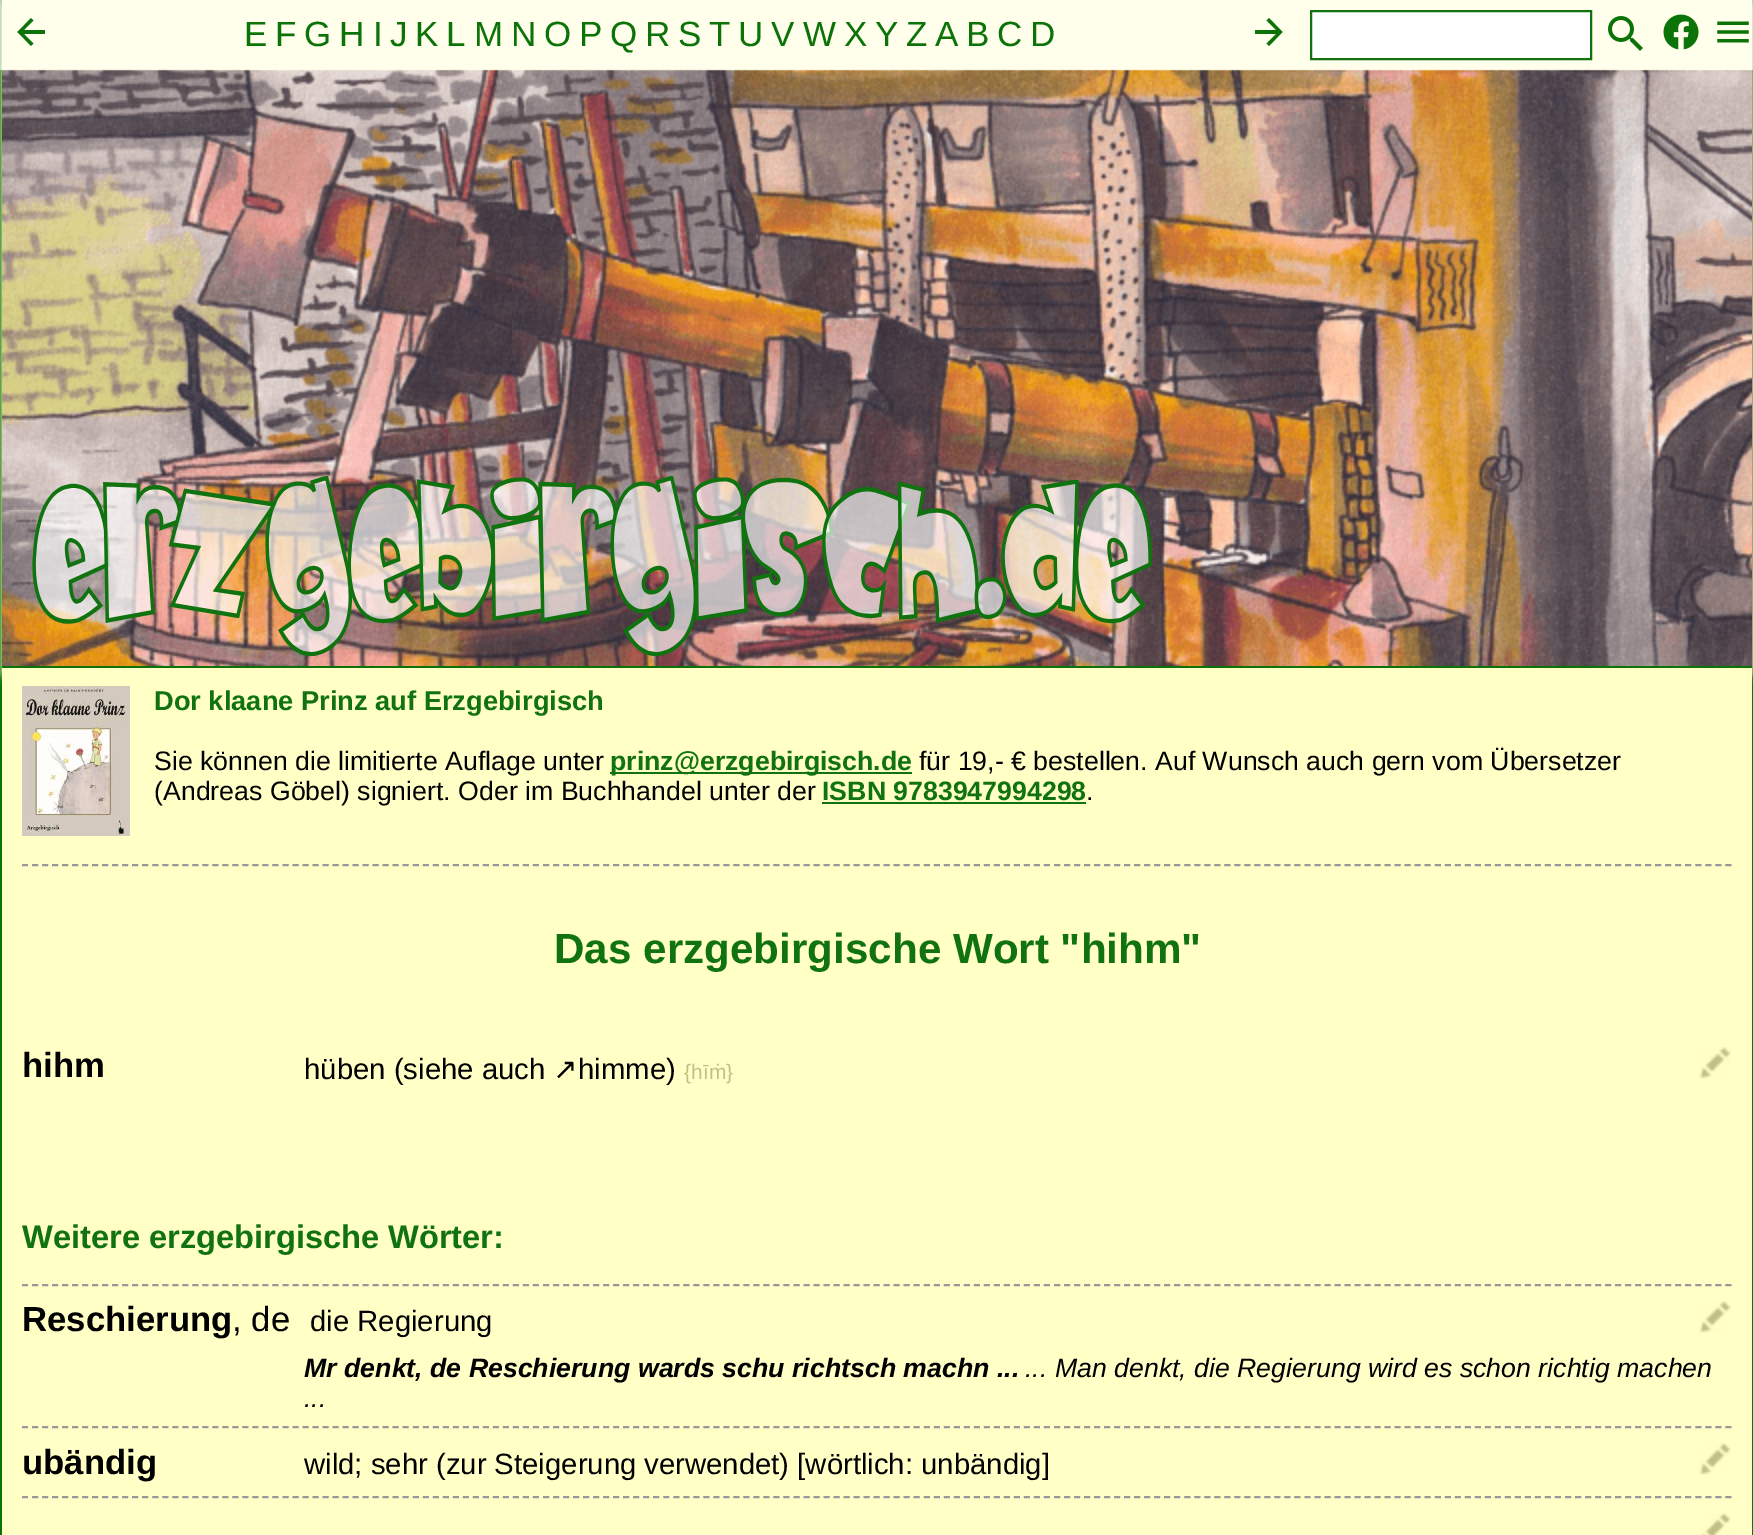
%!PS-Adobe-3.0
%%BoundingBox: 0 0 1753 1535
%%LanguageLevel: 3
%%Pages: 1
%%EndComments
%%BeginProlog
/setink { 3 { 255 div 3 1 roll } repeat setrgbcolor } def
/usefont { [ exch dup neg 0 0 3 -1 roll 0 0 ] selectfont } def
/drawtext { setink usefont moveto show } def
/fillbox { setink rectfill } def
/setalpha { dup .setfillconstantalpha .setstrokeconstantalpha } def
/rrect { 5 dict begin { /r /h /w /y /x } { exch def } forall
  x r add y moveto x w add y 2 copy h add r arct x w add y h add x 1 index r arct
  x y h add x y r arct x y 2 copy exch w add exch r arct closepath end } def
/softshadow { 12 dict begin { /a /b /q /h /w /y /x } { exch def } forall gsave /was 0 def
  9 -2 -9 { dup b mul 4 div /e exch def 1 sub .425 mul 2.718 exch exp 1 add a .99 .min exch div /now exch def
    1 1 now sub 1 was sub div sub setalpha /was now def
    w h .min e 2 mul add 0 gt { x e sub y e sub w e 2 mul add h e 2 mul add
      q e add b .6 mul add w h .min 2 div e add .min 0 .max rrect fill } if } for grestore end } def
/drawimage { 5 dict begin { /h /w /y /x /name } { exch def } forall
  gsave x y translate w h scale
  w h 8 [w 0 0 h 0 0] name (r) file false 3 colorimage grestore end } def
%%EndProlog
%%BeginSetup
<< /PageSize [1753 1535] /PageUsesTransparency true >> setpagedevice
%%EndSetup
%%Page: 1 1
0 .pushpdf14devicefilter
0 1535 translate 1 -1 scale
4 setmiterlimit
0 0 1753 1535 255 255 198 fillbox
1752 0 1 1535 12 115 8 fillbox
0 0 2 1535 12 115 8 fillbox
(assets/img6.rgb) 22 686 108 150 drawimage
gsave
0 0 moveto 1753 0 lineto 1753 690 lineto 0 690 lineto closepath 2 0 moveto 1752 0 lineto 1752 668 lineto 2 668 lineto closepath eoclip newpath
255 255 198 setink
2 6 1750 668 0 5 1 softshadow
grestore
(assets/img4.rgb) 2 69 1750 597 drawimage
0.66 setalpha
0 0 1753 70 255 255 255 fillbox
1 setalpha
12 115 8 setink
45 30 moveto 45 34 lineto 24 34 lineto 33.5 43.5 lineto 31 46 lineto 17.5 32 lineto 31 18 lineto 33.5 20.5 lineto 24 30 lineto closepath fill
(E) 244 46 /LiberationSans-Regular 35 12 115 8 drawtext
(F) 275 46 /LiberationSans-Regular 35 12 115 8 drawtext
(G) 304 46 /LiberationSans-Regular 35 12 115 8 drawtext
(H) 339 46 /LiberationSans-Regular 35 12 115 8 drawtext
(I) 373 46 /LiberationSans-Regular 35 12 115 8 drawtext
(J) 390 46 /LiberationSans-Regular 35 12 115 8 drawtext
(K) 415 46 /LiberationSans-Regular 35 12 115 8 drawtext
(L) 446 46 /LiberationSans-Regular 35 12 115 8 drawtext
(M) 474 46 /LiberationSans-Regular 35 12 115 8 drawtext
(N) 511 46 /LiberationSans-Regular 35 12 115 8 drawtext
(O) 544 46 /LiberationSans-Regular 35 12 115 8 drawtext
(P) 579 46 /LiberationSans-Regular 35 12 115 8 drawtext
(Q) 610 46 /LiberationSans-Regular 35 12 115 8 drawtext
(R) 645 46 /LiberationSans-Regular 35 12 115 8 drawtext
(S) 678 46 /LiberationSans-Regular 35 12 115 8 drawtext
(T) 709 46 /LiberationSans-Regular 35 12 115 8 drawtext
(U) 738 46 /LiberationSans-Regular 35 12 115 8 drawtext
(V) 771 46 /LiberationSans-Regular 35 12 115 8 drawtext
(W) 803 46 /LiberationSans-Regular 35 12 115 8 drawtext
(X) 844 46 /LiberationSans-Regular 35 12 115 8 drawtext
(Y) 875 46 /LiberationSans-Regular 35 12 115 8 drawtext
(Z) 906 46 /LiberationSans-Regular 35 12 115 8 drawtext
(A) 935 46 /LiberationSans-Regular 35 12 115 8 drawtext
(B) 966 46 /LiberationSans-Regular 35 12 115 8 drawtext
(C) 997 46 /LiberationSans-Regular 35 12 115 8 drawtext
(D) 1030 46 /LiberationSans-Regular 35 12 115 8 drawtext
1255 30 moveto 1255 34 lineto 1276 34 lineto 1266.5 43.5 lineto 1269 46 lineto 1282.5 32 lineto 1269 18 lineto 1266.5 20.5 lineto 1276 30 lineto closepath fill
255 255 255 setink
1311 11 moveto 1591 11 lineto 1591 59 lineto 1311 59 lineto closepath gsave fill grestore
16 115 16 setink
2 setlinewidth
stroke
(assets/img1.rgb) 1608 16 35 35 drawimage
(assets/img2.rgb) 1663 14 36 36 drawimage
(assets/img3.rgb) 1717 21 32 22 drawimage
2 666 1750 2 12 115 8 fillbox
(assets/img5.rgb) 32 476 1120 180 drawimage
(Dor klaane Prinz auf Erzgebirgisch) 154 710 /LiberationSans-Bold 27.25 16 115 16 drawtext
(Sie können die limitierte Auflage unter) 154 770 /LiberationSans-Regular 26.7 0 0 0 drawtext
610 772 302 2 16 115 16 fillbox
(prinz@erzgebirgisch.de) 610 770 /LiberationSans-Bold 26.7 16 115 16 drawtext
(für 19,- € bestellen. Auf Wunsch auch gern vom Übersetzer) 919 770 /LiberationSans-Regular 26.7 0 0 0 drawtext
(\(Andreas Göbel\) signiert. Oder im Buchhandel unter der) 154 800 /LiberationSans-Regular 26.7 0 0 0 drawtext
(ISBN 9783947994298) 822 800 /LiberationSans-Bold 26.7 16 115 16 drawtext
(.) 1086 800 /LiberationSans-Regular 26.7 0 0 0 drawtext
822 802 264 2 16 115 16 fillbox
153 153 153 setink
[6 4.02] 0 setdash
22 865 moveto 1732 865 lineto stroke
(Das erzgebirgische Wort "hihm") 554 963 /LiberationSans-Bold 42.2 16 115 16 drawtext
(hihm) 22 1077 /LiberationSans-Bold 34.75 0 0 0 drawtext
(hüben \(siehe auch) 304 1079 /LiberationSans-Regular 29.3 0 0 0 drawtext
(↗) 553 1079 /DejaVuSans-Regular 29.3 0 0 0 drawtext
(himme\)) 578 1079 /LiberationSans-Regular 29.3 0 0 0 drawtext
({hīṁ}) 684 1079 /LiberationSans-Regular 21 191 191 134 drawtext
(assets/img7.rgb) 1699 1047 32 32 drawimage
(Weitere erzgebirgische Wörter:) 22 1248 /LiberationSans-Bold 32.6 16 115 16 drawtext
153 153 153 setink
22 1285 moveto 1732 1285 lineto stroke
(Reschierung) 22 1331 /LiberationSans-Bold 34.75 0 0 0 drawtext
(, de) 232 1331 /LiberationSans-Regular 34.75 0 0 0 drawtext
(die Regierung) 310 1331 /LiberationSans-Regular 29.3 0 0 0 drawtext
(assets/img7.rgb) 1699 1301 32 32 drawimage
(Mr denkt, de Reschierung wards schu richtsch machn ...) 304 1377 /LiberationSans-BoldItalic 26.7 0 0 0 drawtext
(... Man denkt, die Regierung wird es schon richtig machen) 1025 1377 /LiberationSans-Italic 26.7 0 0 0 drawtext
(...) 304 1407 /LiberationSans-Italic 26.7 0 0 0 drawtext
153 153 153 setink
22 1427 moveto 1732 1427 lineto stroke
(ubändig) 22 1474 /LiberationSans-Bold 34.75 0 0 0 drawtext
(wild; sehr \(zur Steigerung verwendet\) [wörtlich: unbändig]) 304 1474 /LiberationSans-Regular 29.3 0 0 0 drawtext
(assets/img7.rgb) 1699 1443 32 32 drawimage
153 153 153 setink
22 1497 moveto 1732 1497 lineto stroke
(assets/img8.rgb) 1701 1513 30 22 drawimage
.poppdf14devicefilter showpage
%%EOF
